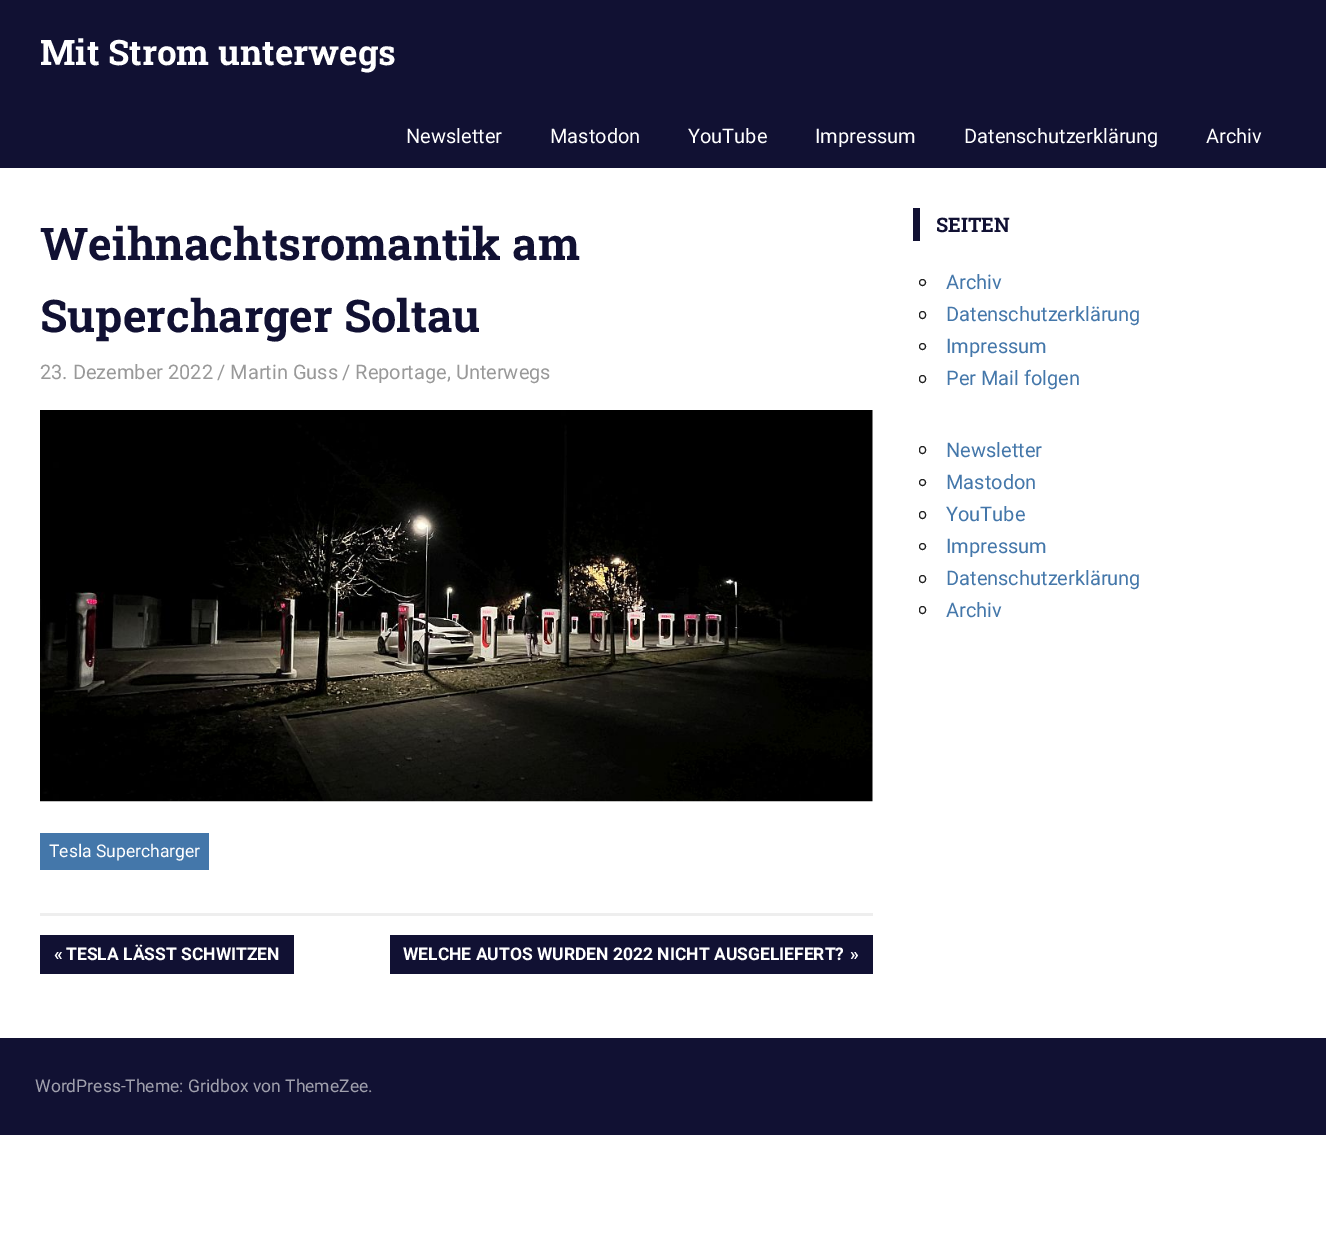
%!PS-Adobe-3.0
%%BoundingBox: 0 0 1326 1247
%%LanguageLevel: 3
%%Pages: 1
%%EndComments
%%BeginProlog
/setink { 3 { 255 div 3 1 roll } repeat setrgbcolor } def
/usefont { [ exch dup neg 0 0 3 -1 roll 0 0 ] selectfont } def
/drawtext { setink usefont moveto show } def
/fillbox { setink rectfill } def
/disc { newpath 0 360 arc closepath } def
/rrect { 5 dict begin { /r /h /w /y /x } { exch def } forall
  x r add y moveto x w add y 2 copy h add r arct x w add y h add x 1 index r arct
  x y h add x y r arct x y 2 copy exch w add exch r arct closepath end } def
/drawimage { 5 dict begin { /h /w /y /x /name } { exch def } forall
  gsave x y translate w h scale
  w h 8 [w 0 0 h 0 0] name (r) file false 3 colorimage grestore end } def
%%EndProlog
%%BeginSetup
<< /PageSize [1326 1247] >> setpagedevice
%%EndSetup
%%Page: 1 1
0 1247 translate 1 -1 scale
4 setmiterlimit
0 0 1326 1247 255 255 255 fillbox
0 0 1326 168 17 17 51 fillbox
(Mit Strom unterwegs) 40 65 /RobotoSlab-Bold 35 255 255 255 drawtext
(Newsletter) 406 143 /Roboto-Regular 20 255 255 255 drawtext
(Mastodon) 550 143 /Roboto-Regular 20 255 255 255 drawtext
(YouTube) 688 143 /Roboto-Regular 20 255 255 255 drawtext
(Impressum) 815 143 /Roboto-Regular 20 255 255 255 drawtext
(Datenschutzerklärung) 964 143 /Roboto-Regular 20 255 255 255 drawtext
(Archiv) 1206 143 /Roboto-Regular 20 255 255 255 drawtext
(Weihnachtsromantik am) 40 260 /RobotoSlab-Bold 45 17 17 51 drawtext
(Supercharger Soltau) 40 332 /RobotoSlab-Bold 45 17 17 51 drawtext
(23. Dezember 2022) 40 379 /Roboto-Regular 20 153 153 153 drawtext
(/ Martin Guss) 217 379 /Roboto-Regular 20 153 153 153 drawtext
(/ Reportage, Unterwegs) 342 379 /Roboto-Regular 20 153 153 153 drawtext
(assets/img1.rgb) 40 410 833 392 drawimage
40 833 169 37 68 119 170 fillbox
(Tesla Supercharger) 49 857 /Roboto-Regular 17.5 255 255 255 drawtext
40 913 833 3 238 238 238 fillbox
40 935 254 39 17 17 51 fillbox
(«) 54 960 /Roboto-Bold 17.5 255 255 255 drawtext
(TESLA LÄSST SCHWITZEN) 66 960 /Roboto-Bold 17.5 255 255 255 drawtext
390 935 483 39 17 17 51 fillbox
(WELCHE AUTOS WURDEN 2022 NICHT AUSGELIEFERT?) 403 960 /Roboto-Bold 17.5 255 255 255 drawtext
(») 850 960 /Roboto-Bold 17.5 255 255 255 drawtext
913 208 7 33 17 17 51 fillbox
(SEITEN) 936 232 /RobotoSlab-Bold 20 17 17 51 drawtext
34 34 34 setink
922.5 282.5 3 disc stroke
(Archiv) 946 289 /Roboto-Regular 20 68 119 170 drawtext
34 34 34 setink
919.5 311.5 6 7 3 rrect stroke
(Datenschutzerklärung) 946 321 /Roboto-Regular 20 68 119 170 drawtext
34 34 34 setink
922.5 346.5 3 disc stroke
(Impressum) 946 353 /Roboto-Regular 20 68 119 170 drawtext
34 34 34 setink
919.5 375.5 6 7 3 rrect stroke
(Per Mail folgen) 946 385 /Roboto-Regular 20 68 119 170 drawtext
34 34 34 setink
919.5 446.5 6 7 3 rrect stroke
(Newsletter) 946 457 /Roboto-Regular 20 68 119 170 drawtext
34 34 34 setink
922.5 482.5 3 disc stroke
(Mastodon) 946 489 /Roboto-Regular 20 68 119 170 drawtext
34 34 34 setink
919.5 511.5 6 7 3 rrect stroke
(YouTube) 946 521 /Roboto-Regular 20 68 119 170 drawtext
34 34 34 setink
922.5 546.5 3 disc stroke
(Impressum) 946 553 /Roboto-Regular 20 68 119 170 drawtext
34 34 34 setink
919.5 575.5 6 7 3 rrect stroke
(Datenschutzerklärung) 946 585 /Roboto-Regular 20 68 119 170 drawtext
34 34 34 setink
919.5 606.5 6 7 3 rrect stroke
(Archiv) 946 617 /Roboto-Regular 20 68 119 170 drawtext
0 1038 1326 97 17 17 51 fillbox
(WordPress-Theme: Gridbox von ThemeZee.) 35 1092 /Roboto-Regular 17.5 160 160 173 drawtext
showpage
%%EOF
